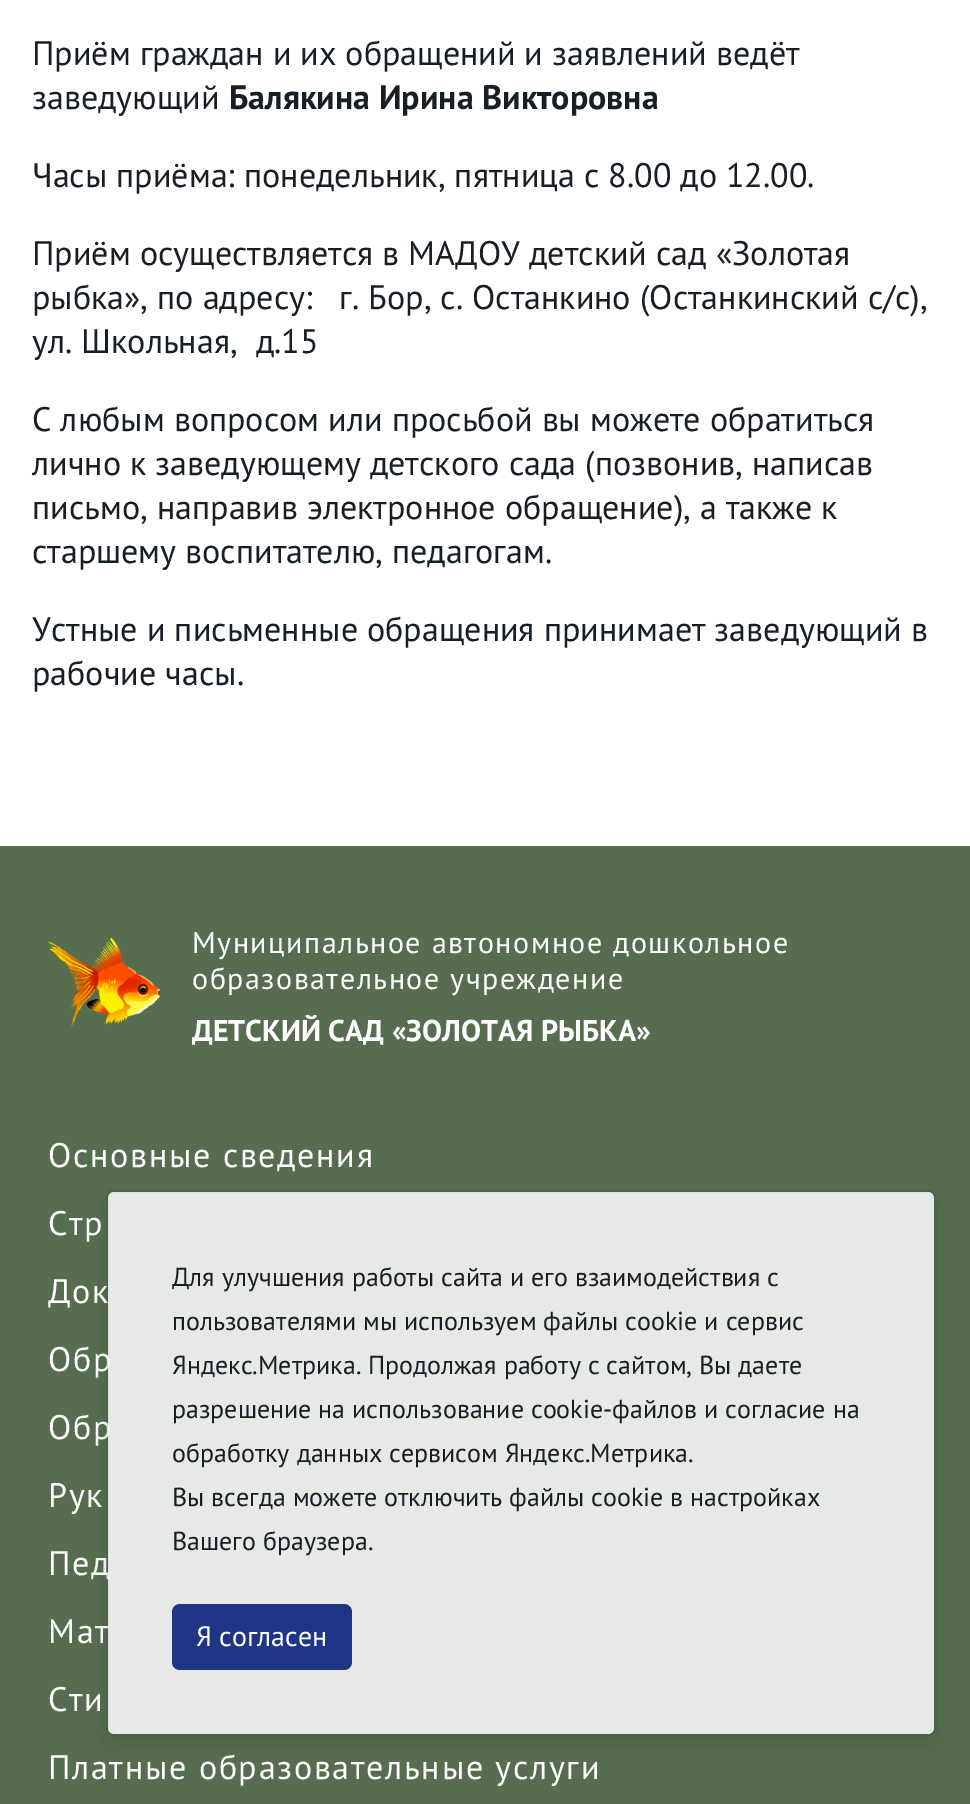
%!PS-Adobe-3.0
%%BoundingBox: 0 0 970 1804
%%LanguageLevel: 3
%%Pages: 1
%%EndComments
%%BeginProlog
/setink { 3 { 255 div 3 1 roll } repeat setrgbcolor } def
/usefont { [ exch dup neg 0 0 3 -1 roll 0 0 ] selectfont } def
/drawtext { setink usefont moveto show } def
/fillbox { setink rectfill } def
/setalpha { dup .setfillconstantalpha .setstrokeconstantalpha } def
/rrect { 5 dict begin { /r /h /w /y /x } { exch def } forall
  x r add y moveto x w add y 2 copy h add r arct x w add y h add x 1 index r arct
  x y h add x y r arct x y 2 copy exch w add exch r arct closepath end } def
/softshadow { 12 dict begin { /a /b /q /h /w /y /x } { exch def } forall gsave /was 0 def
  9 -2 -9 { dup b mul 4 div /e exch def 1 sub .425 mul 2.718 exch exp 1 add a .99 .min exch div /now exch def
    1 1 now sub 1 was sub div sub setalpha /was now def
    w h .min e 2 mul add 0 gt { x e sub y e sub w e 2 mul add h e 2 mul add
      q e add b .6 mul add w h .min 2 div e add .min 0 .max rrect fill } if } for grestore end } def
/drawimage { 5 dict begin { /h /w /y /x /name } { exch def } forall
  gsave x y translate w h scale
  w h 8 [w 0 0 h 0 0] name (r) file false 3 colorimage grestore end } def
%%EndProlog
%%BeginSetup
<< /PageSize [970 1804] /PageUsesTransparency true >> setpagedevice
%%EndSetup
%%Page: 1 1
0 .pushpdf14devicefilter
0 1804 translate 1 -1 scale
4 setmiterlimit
0 0 970 1804 255 255 255 fillbox
(Приём граждан и их обращений и заявлений ведёт) 32 65 /PTSans-Regular 34 22 30 38 drawtext
(заведующий) 32 109 /PTSans-Regular 34 22 30 38 drawtext
(Балякина Ирина Викторовна) 229 109 /PTSans-Bold 34 22 30 38 drawtext
(Часы приёма: понедельник, пятница с 8.00 до 12.00.) 32 187 /PTSans-Regular 34 22 30 38 drawtext
(Приём осуществляется в МАДОУ детский сад «Золотая) 32 265 /PTSans-Regular 34 22 30 38 drawtext
(рыбка», по адресу:   г. Бор, с. Останкино \(Останкинский с/с\),) 32 309 /PTSans-Regular 34 22 30 38 drawtext
(ул. Школьная,  д.15) 32 353 /PTSans-Regular 34 22 30 38 drawtext
(С любым вопросом или просьбой вы можете обратиться) 32 431 /PTSans-Regular 34 22 30 38 drawtext
(лично к заведующему детского сада \(позвонив, написав) 32 475 /PTSans-Regular 34 22 30 38 drawtext
(письмо, направив электронное обращение\), а также к) 32 519 /PTSans-Regular 34 22 30 38 drawtext
(старшему воспитателю, педагогам.) 32 563 /PTSans-Regular 34 22 30 38 drawtext
(Устные и письменные обращения принимает заведующий в) 32 641 /PTSans-Regular 34 22 30 38 drawtext
(рабочие часы.) 32 685 /PTSans-Regular 34 22 30 38 drawtext
0 846 970 958 86 109 80 fillbox
(assets/img1.rgb) 48 938 112 88 drawimage
/PTSans-Regular 30 usefont
255 255 255 setink
192 953 moveto 1.5 0 (Муниципальное автономное дошкольное) ashow
192 989 moveto 1.5 0 (образовательное учреждение) ashow
(ДЕТСКИЙ САД «ЗОЛОТАЯ РЫБКА») 192 1041 /PTSans-Bold 30 255 255 255 drawtext
/PTSans-Regular 34 usefont
48 1167 moveto 1.7 0 (Основные сведения) ashow
48 1235 moveto 1.7 0 (Стр) ashow
48 1303 moveto 1.7 0 (Док) ashow
48 1371 moveto 1.7 0 (Обр) ashow
48 1439 moveto 1.7 0 (Обр) ashow
48 1507 moveto 1.7 0 (Рук) ashow
48 1575 moveto 1.7 0 (Пед) ashow
48 1643 moveto 1.7 0 (Мат) ashow
48 1711 moveto 1.7 0 (Сти) ashow
48 1779 moveto 1.7 0 (Платные образовательные услуги) ashow
gsave
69 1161 moveto 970 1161 lineto 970 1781 lineto 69 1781 lineto closepath 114 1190 moveto 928 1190 lineto 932.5 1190 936 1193.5 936 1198 curveto 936 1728 lineto 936 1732.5 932.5 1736 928 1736 curveto 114 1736 lineto 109.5 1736 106 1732.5 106 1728 curveto 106 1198 lineto 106 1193.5 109.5 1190 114 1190 curveto closepath eoclip newpath
0 0 0 setink
106 1198 830 546 8 12 0.1 softshadow
grestore
0.85 setalpha
108 1192 826 542 6 rrect fill
0.1 setalpha
0 0 0 setink
2 setlinewidth
107 1191 828 544 7 rrect stroke
1 setalpha
(Для улучшения работы сайта и его взаимодействия с) 172 1286 /PTSans-Regular 26 22 30 38 drawtext
(пользователями мы используем файлы cookie и сервис) 172 1330 /PTSans-Regular 26 22 30 38 drawtext
(Яндекс.Метрика. Продолжая работу с сайтом, Вы даете) 172 1374 /PTSans-Regular 26 22 30 38 drawtext
(разрешение на использование cookie-файлов и согласие на) 172 1418 /PTSans-Regular 26 22 30 38 drawtext
(обработку данных сервисом Яндекс.Метрика.) 172 1462 /PTSans-Regular 26 22 30 38 drawtext
(Вы всегда можете отключить файлы cookie в настройках) 172 1506 /PTSans-Regular 26 22 30 38 drawtext
(Вашего браузера.) 172 1550 /PTSans-Regular 26 22 30 38 drawtext
30 54 133 setink
172 1604 180 66 8 rrect fill
(Я согласен) 196 1646 /PTSans-Regular 28 255 255 255 drawtext
.poppdf14devicefilter showpage
%%EOF
